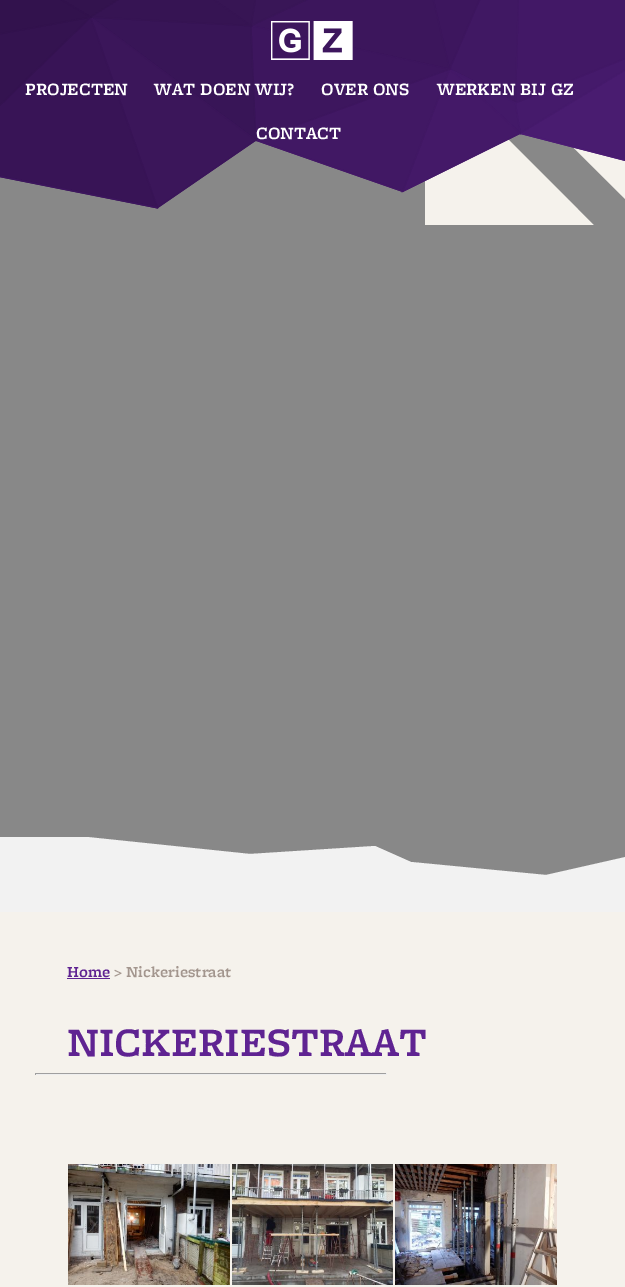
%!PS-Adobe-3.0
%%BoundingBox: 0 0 625 1287
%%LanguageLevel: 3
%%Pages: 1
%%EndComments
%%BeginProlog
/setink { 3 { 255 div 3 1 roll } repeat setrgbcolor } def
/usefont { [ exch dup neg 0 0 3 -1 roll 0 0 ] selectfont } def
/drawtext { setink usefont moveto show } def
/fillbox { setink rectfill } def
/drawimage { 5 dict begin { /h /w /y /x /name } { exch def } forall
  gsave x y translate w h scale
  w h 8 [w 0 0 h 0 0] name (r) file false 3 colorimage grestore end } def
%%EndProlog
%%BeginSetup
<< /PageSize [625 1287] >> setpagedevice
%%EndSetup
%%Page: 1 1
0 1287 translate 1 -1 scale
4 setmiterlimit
0 0 625 1287 245 242 236 fillbox
136 136 136 setink
425 0 moveto -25 0 lineto -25 901 lineto 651 901 lineto 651 225 lineto closepath 425 225 moveto 425 56 lineto 594 225 lineto closepath fill
(assets/img1.rgb) 0 0 625 209 drawimage
(assets/img2.rgb) 271 21 82 39 drawimage
(PROJECTEN) 25 95 /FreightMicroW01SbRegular-Regular 18 255 255 255 drawtext
(WAT DOEN WIJ?) 154 95 /FreightMicroW01SbRegular-Regular 18 255 255 255 drawtext
(OVER ONS) 321 95 /FreightMicroW01SbRegular-Regular 18 255 255 255 drawtext
(WERKEN BIJ GZ) 437 95 /FreightMicroW01SbRegular-Regular 18 255 255 255 drawtext
(CONTACT) 256 139 /FreightMicroW01SbRegular-Regular 18 255 255 255 drawtext
242 242 242 setink
-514 912 moveto -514 837 lineto -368 837 lineto -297 867 lineto -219 837 lineto 87 837 lineto 250 854 lineto 375 846 lineto 411 862 lineto 546 875 lineto 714 837 lineto 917 846 lineto 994 867 lineto 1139 846 lineto 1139 912 lineto closepath fill
(Home) 67 977 /FreightMicroW01SbRegular-Regular 16 95 35 146 drawtext
67 978 43 1 95 35 146 fillbox
(> Nickeriestraat) 114 977 /FreightMicroW01SbRegular-Regular 16 163 150 142 drawtext
(NICKERIESTRAAT) 67 1056 /FreightMicroW01SbRegular-Regular 42 95 35 146 drawtext
35 1073 352 1 159 159 159 fillbox
386 1073 1 2 238 238 238 fillbox
35 1074 352 1 238 238 238 fillbox
35 1073 1 2 159 159 159 fillbox
(assets/img3.rgb) 68 1164 162 121 drawimage
(assets/img4.rgb) 232 1164 161 121 drawimage
(assets/img5.rgb) 395 1164 162 121 drawimage
showpage
%%EOF
